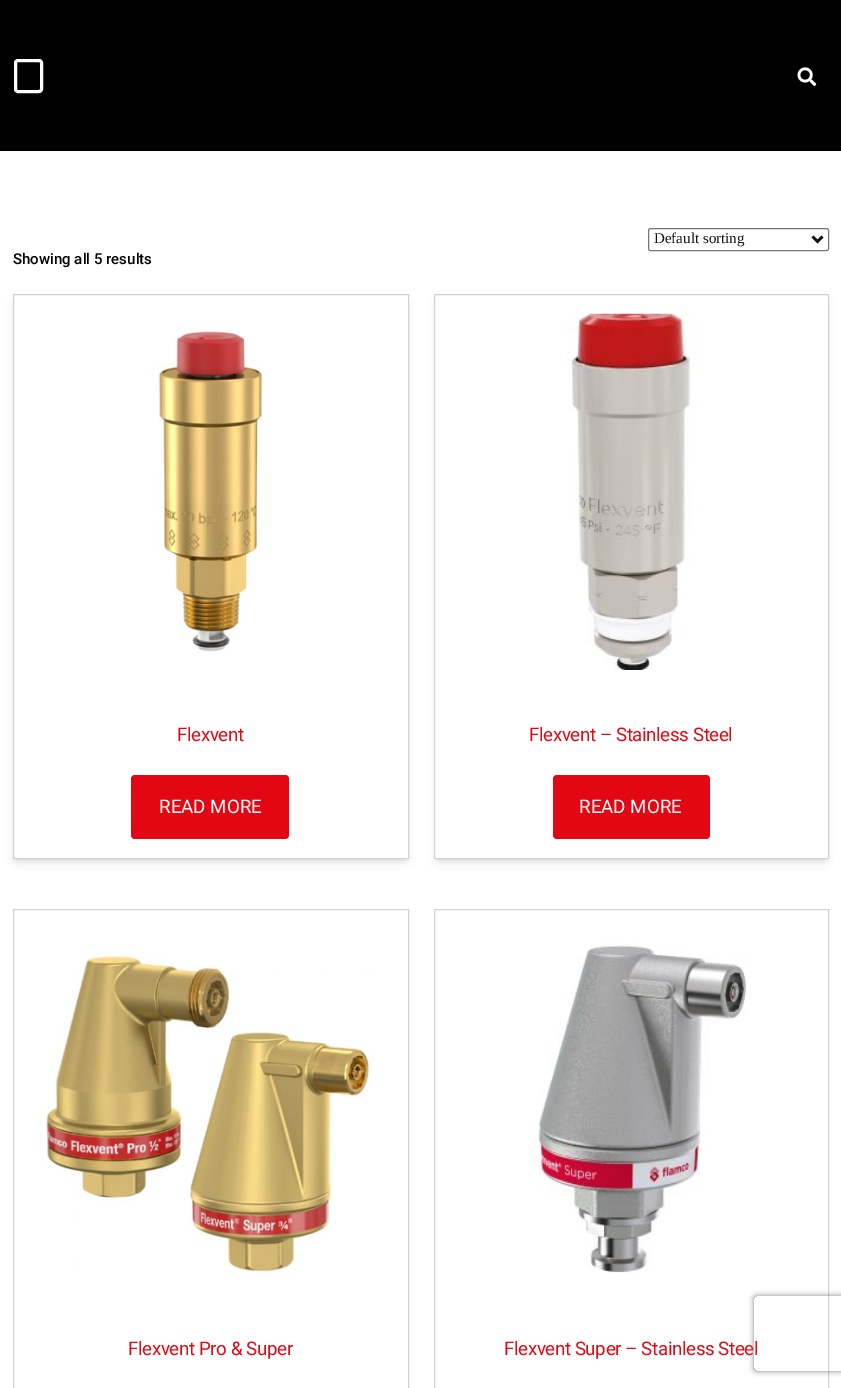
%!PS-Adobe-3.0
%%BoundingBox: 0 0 841 1388
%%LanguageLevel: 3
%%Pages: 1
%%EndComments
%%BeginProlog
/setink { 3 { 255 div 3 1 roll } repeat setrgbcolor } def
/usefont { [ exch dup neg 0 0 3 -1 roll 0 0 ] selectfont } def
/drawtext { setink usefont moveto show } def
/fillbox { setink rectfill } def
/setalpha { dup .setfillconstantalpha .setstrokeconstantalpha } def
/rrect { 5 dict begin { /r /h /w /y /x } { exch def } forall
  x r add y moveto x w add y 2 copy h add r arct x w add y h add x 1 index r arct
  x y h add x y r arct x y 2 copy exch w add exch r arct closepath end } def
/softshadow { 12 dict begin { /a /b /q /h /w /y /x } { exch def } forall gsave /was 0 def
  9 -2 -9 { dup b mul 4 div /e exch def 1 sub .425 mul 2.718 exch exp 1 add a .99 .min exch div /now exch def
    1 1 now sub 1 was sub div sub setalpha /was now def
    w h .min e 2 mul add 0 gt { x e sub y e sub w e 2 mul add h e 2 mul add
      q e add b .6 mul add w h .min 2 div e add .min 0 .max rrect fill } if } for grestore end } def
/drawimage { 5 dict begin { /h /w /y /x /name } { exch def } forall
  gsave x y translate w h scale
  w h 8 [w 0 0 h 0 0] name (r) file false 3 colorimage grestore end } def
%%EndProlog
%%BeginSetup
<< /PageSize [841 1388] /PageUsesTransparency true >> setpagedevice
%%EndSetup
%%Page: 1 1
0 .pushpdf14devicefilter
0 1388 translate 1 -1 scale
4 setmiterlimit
0 0 841 1388 255 255 255 fillbox
0 0 841 151 0 0 0 fillbox
255 255 255 setink
3 setlinewidth
15.5 60.5 26 31 2.5 rrect stroke
(assets/img1.rgb) 797 67 20 19 drawimage
118 118 118 setink
1 setlinewidth
648.5 228.5 180 22 2 rrect stroke
17 17 17 setink
2.5 setlinewidth
812.5 236.5 moveto 817.5 241.5 lineto 822.5 236.5 lineto stroke
(Default sorting) 654 243 /LiberationSerif-Regular 15 17 17 17 drawtext
(Showing all 5 results) 13 264 /Roboto-Medium 15 0 0 0 drawtext
gsave
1 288 moveto 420 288 lineto 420 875 lineto 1 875 lineto closepath 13 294 moveto 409 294 lineto 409 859 lineto 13 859 lineto closepath eoclip newpath
16 303 389 557 0 4.5 0.2 softshadow
grestore
210 210 210 setink
1 setlinewidth
13.5 294.5 395 564 rectstroke
(assets/img2.rgb) 158 330 105 322 drawimage
/Roboto-Regular 18.75 usefont
227 6 19 setink
177 741 moveto -0.4 0 (Flexvent) ashow
131 775 158 64 4 rrect fill
(READ MORE) 159 813 /Roboto-Regular 18.75 255 255 255 drawtext
gsave
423 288 moveto 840 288 lineto 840 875 lineto 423 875 lineto closepath 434 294 moveto 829 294 lineto 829 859 lineto 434 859 lineto closepath eoclip newpath
0 0 0 setink
438 303 387 557 0 4.5 0.2 softshadow
grestore
210 210 210 setink
434.5 294.5 394 564 rectstroke
(assets/img3.rgb) 567 313 133 357 drawimage
227 6 19 setink
529 741 moveto -0.4 0 (Flexvent – Stainless Steel) ashow
553 775 157 64 4 rrect fill
(READ MORE) 579 813 /Roboto-Regular 18.75 255 255 255 drawtext
210 210 210 setink
13.5 909.5 395 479 rectstroke
(assets/img4.rgb) 45 952 328 321 drawimage
227 6 19 setink
128 1355 moveto -0.4 0 (Flexvent Pro & Super) ashow
210 210 210 setink
434.5 909.5 394 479 rectstroke
(assets/img5.rgb) 529 943 218 330 drawimage
227 6 19 setink
504 1355 moveto -0.4 0 (Flexvent Super – Stainless Steel) ashow
gsave
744 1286 moveto 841 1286 lineto 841 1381 lineto 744 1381 lineto closepath 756.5 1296 moveto 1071.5 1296 lineto 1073 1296 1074 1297 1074 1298.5 curveto 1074 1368.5 lineto 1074 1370 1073 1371 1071.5 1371 curveto 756.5 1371 lineto 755 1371 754 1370 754 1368.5 curveto 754 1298.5 lineto 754 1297 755 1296 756.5 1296 curveto closepath eoclip newpath
128 128 128 setink
754 1296 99 75 2.5 3 1 softshadow
grestore
.poppdf14devicefilter showpage
%%EOF
